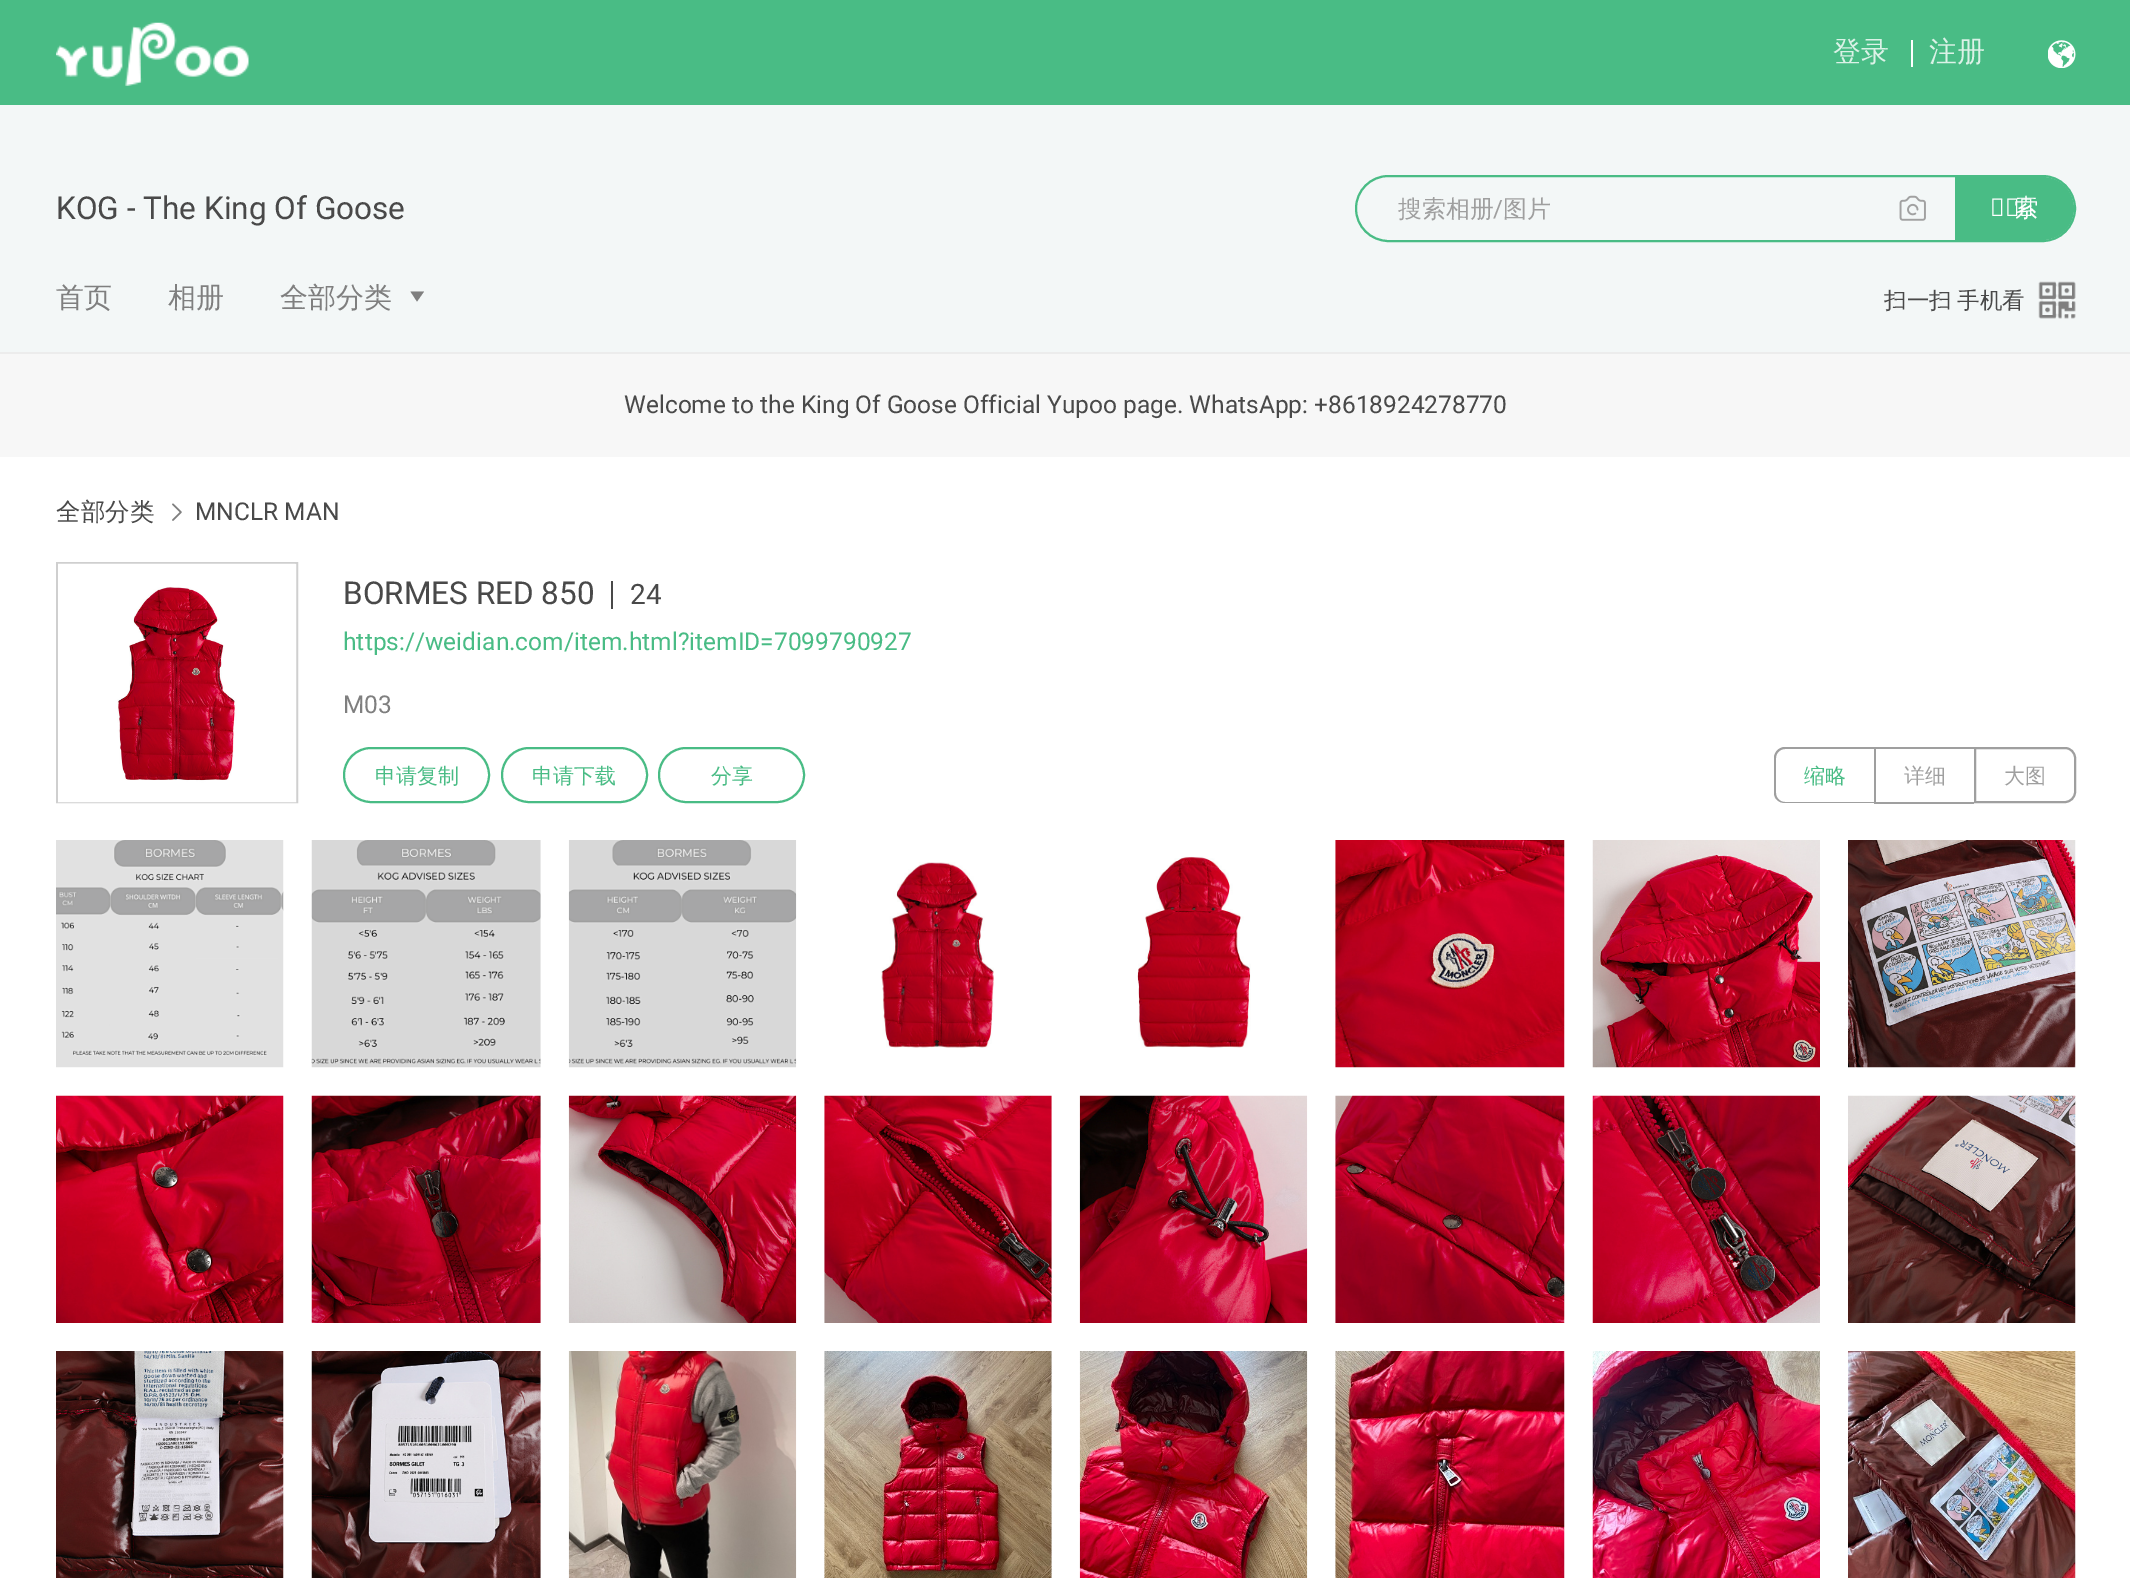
%!PS-Adobe-3.0
%%BoundingBox: 0 0 2130 1578
%%LanguageLevel: 3
%%Pages: 1
%%EndComments
%%BeginProlog
/setink { 3 { 255 div 3 1 roll } repeat setrgbcolor } def
/usefont { [ exch dup neg 0 0 3 -1 roll 0 0 ] selectfont } def
/drawtext { setink usefont moveto show } def
/fillbox { setink rectfill } def
/rrect { 5 dict begin { /r /h /w /y /x } { exch def } forall
  x r add y moveto x w add y 2 copy h add r arct x w add y h add x 1 index r arct
  x y h add x y r arct x y 2 copy exch w add exch r arct closepath end } def
/drawimage { 5 dict begin { /h /w /y /x /name } { exch def } forall
  gsave x y translate w h scale
  w h 8 [w 0 0 h 0 0] name (r) file false 3 colorimage grestore end } def
%%EndProlog
%%BeginSetup
<< /PageSize [2130 1578] >> setpagedevice
%%EndSetup
%%Page: 1 1
0 1578 translate 1 -1 scale
4 setmiterlimit
0 0 2130 1578 255 255 255 fillbox
0 0 2130 105 73 188 133 fillbox
(assets/img1.rgb) 56 22 193 64 drawimage
(登录) 1833 61 /WenQuanYiZenHei-Medium 28 219 242 231 drawtext
1911 40 2 27 255 255 255 fillbox
(注册) 1929 61 /WenQuanYiZenHei-Medium 28 219 242 231 drawtext
(assets/img2.rgb) 2048 40 28 28 drawimage
0 105 2130 247 243 247 247 fillbox
(KOG - The King Of Goose) 56 219 /Roboto-Regular 31.5 73 73 73 drawtext
73 188 133 setink
2 setlinewidth
1356 176 719 65 32.5 rrect stroke
(搜索相册) 1398 217 /WenQuanYiZenHei-Medium 24 159 159 159 drawtext
(/) 1493 217 /Roboto-Regular 24 159 159 159 drawtext
(图片) 1503 217 /WenQuanYiZenHei-Medium 24 159 159 159 drawtext
(assets/img3.rgb) 1899 195 27 26 drawimage
73 188 133 setink
1956 178 moveto 2042.5 178 lineto 2059.5 178 2073 191.5 2073 208.5 curveto 2073 225.5 2059.5 239 2042.5 239 curveto 1956 239 lineto closepath gsave fill grestore
stroke
(搜) 1990 216 /NotoSans-Regular 24.5 255 255 255 drawtext
(索) 2014 216 /WenQuanYiZenHei-Medium 24.5 255 255 255 drawtext
(首页) 56 307 /WenQuanYiZenHei-Medium 28 127 127 127 drawtext
(相册) 168 307 /WenQuanYiZenHei-Medium 28 127 127 127 drawtext
(全部分类) 280 307 /WenQuanYiZenHei-Medium 28 127 127 127 drawtext
417 301.5 moveto 410.5 291.5 lineto 424 291.5 lineto closepath fill
/WenQuanYiZenHei-Medium 22.5 usefont
73 73 73 setink
1884 308 moveto -1 0 32 (扫一扫 手机看) widthshow
(assets/img4.rgb) 2038 281 38 38 drawimage
0 354 2130 103 247 247 247 fillbox
0 352 2130 2 236 236 236 fillbox
(Welcome to the King Of Goose Official Yupoo page. WhatsApp: +8618924278770) 624 413 /Roboto-Regular 24.5 73 73 73 drawtext
(全部分类) 56 520 /WenQuanYiZenHei-Medium 24.5 73 73 73 drawtext
(assets/img5.rgb) 172 503 10 18 drawimage
(MNCLR MAN) 195 520 /Roboto-Regular 24.5 73 73 73 drawtext
207 207 207 setink
57 563 240 239 rectstroke
(assets/img6.rgb) 58 563 238 230 drawimage
255 255 255 setink
9 setlinewidth
62.5 568.5 229 229 rectstroke
(BORMES RED 850) 343 604 /Roboto-Regular 31.5 73 73 73 drawtext
611 581 2 28 73 73 73 fillbox
(24) 630 604 /Roboto-Regular 28 73 73 73 drawtext
(https://weidian.com/item.html?itemID=7099790927) 343 650 /Roboto-Regular 24.5 73 188 133 drawtext
(M03) 343 713 /Roboto-Regular 24.5 127 127 127 drawtext
73 188 133 setink
2 setlinewidth
344 748 145 54 27 rrect stroke
(申请复制) 375 783 /WenQuanYiZenHei-Medium 21 73 188 133 drawtext
502 748 145 54 27 rrect stroke
(申请下载) 532 783 /WenQuanYiZenHei-Medium 21 73 188 133 drawtext
659 748 145 54 27 rrect stroke
(分享) 711 783 /WenQuanYiZenHei-Medium 21 73 188 133 drawtext
159 159 159 setink
1785 747 moveto 1874 747 lineto 1874 803 lineto 1785 803 lineto 1779 803 1774 799 1774 793 curveto 1774 758 lineto 1774 752 1779 747 1785 747 curveto closepath 1785 749 moveto 1874 749 lineto 1874 802 lineto 1785 802 lineto 1780 802 1776 798 1776 793 curveto 1776 758 lineto 1776 753 1780 749 1785 749 curveto closepath eofill
(缩略) 1804 783 /WenQuanYiZenHei-Medium 21 73 188 133 drawtext
1874 747 100 2 159 159 159 fillbox
1874 802 100 2 159 159 159 fillbox
1874 747 2 56 159 159 159 fillbox
(详细) 1904 783 /WenQuanYiZenHei-Medium 21 159 159 159 drawtext
1975 748 moveto 2065 748 lineto 2070.5 748 2075 752.5 2075 758 curveto 2075 792 lineto 2075 797.5 2070.5 802 2065 802 curveto 1975 802 lineto closepath stroke
(大图) 2004 783 /WenQuanYiZenHei-Medium 21 159 159 159 drawtext
(assets/img7.rgb) 56 840 228 228 drawimage
(assets/img8.rgb) 311 840 230 228 drawimage
(assets/img9.rgb) 568 840 229 228 drawimage
(assets/img10.rgb) 881 862 113 186 drawimage
(assets/img11.rgb) 1137 856 114 192 drawimage
(assets/img12.rgb) 1335 840 230 228 drawimage
(assets/img13.rgb) 1592 840 228 228 drawimage
(assets/img14.rgb) 1848 840 228 228 drawimage
(assets/img15.rgb) 56 1095 228 228 drawimage
(assets/img16.rgb) 311 1095 230 228 drawimage
(assets/img17.rgb) 568 1095 229 228 drawimage
(assets/img18.rgb) 824 1095 228 228 drawimage
(assets/img19.rgb) 1079 1095 229 228 drawimage
(assets/img20.rgb) 1335 1095 230 228 drawimage
(assets/img21.rgb) 1592 1095 228 228 drawimage
(assets/img22.rgb) 1848 1095 228 228 drawimage
(assets/img23.rgb) 56 1351 228 227 drawimage
(assets/img24.rgb) 311 1351 230 227 drawimage
(assets/img25.rgb) 568 1351 229 227 drawimage
(assets/img26.rgb) 824 1351 228 227 drawimage
(assets/img27.rgb) 1079 1351 229 227 drawimage
(assets/img28.rgb) 1335 1351 230 227 drawimage
(assets/img29.rgb) 1592 1351 228 227 drawimage
(assets/img30.rgb) 1848 1351 228 227 drawimage
showpage
%%EOF
